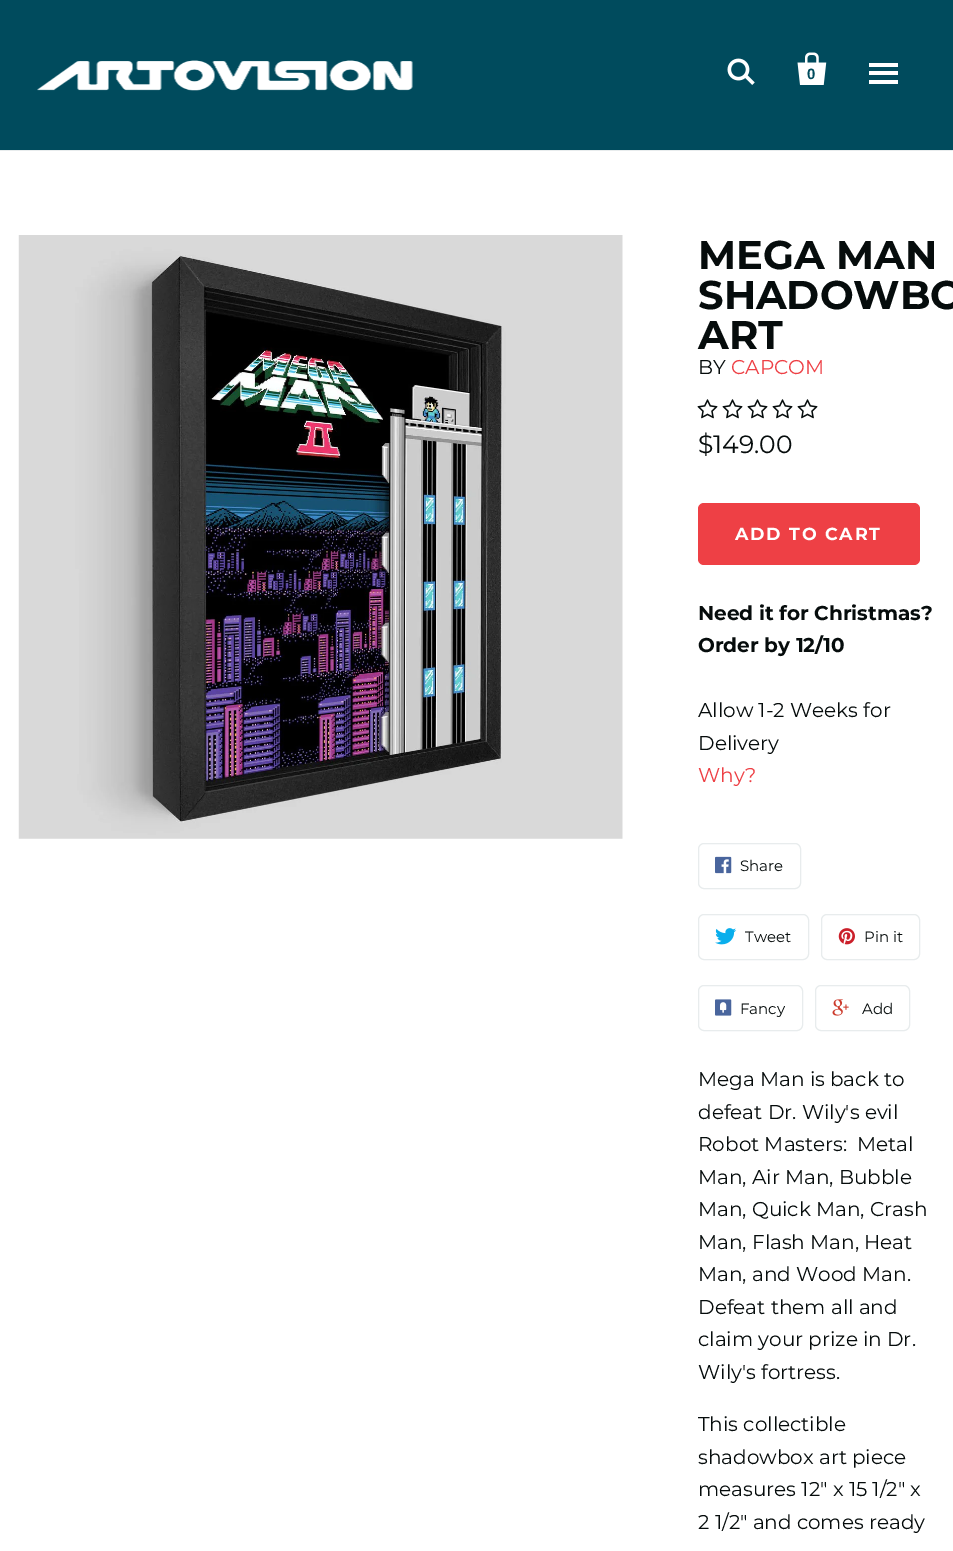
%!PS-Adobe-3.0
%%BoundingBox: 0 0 953 1551
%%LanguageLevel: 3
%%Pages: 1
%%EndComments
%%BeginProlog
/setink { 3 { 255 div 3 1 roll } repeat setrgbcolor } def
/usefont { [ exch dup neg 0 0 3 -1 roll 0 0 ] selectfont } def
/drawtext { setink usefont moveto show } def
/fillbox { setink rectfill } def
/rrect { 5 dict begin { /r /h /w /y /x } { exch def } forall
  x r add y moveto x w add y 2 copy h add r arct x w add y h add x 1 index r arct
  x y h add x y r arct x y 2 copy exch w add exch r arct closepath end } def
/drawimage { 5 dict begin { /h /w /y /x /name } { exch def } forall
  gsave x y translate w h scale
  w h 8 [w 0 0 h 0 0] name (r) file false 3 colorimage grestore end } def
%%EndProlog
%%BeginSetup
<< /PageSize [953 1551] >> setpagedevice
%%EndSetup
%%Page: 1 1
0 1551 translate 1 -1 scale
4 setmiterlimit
0 0 953 1551 255 255 255 fillbox
0 0 953 150 0 75 93 fillbox
0 150 953 1 232 236 237 fillbox
(assets/img1.rgb) 37 60 376 31 drawimage
(assets/img2.rgb) 727 58 28 27 drawimage
(assets/img3.rgb) 797 52 30 33 drawimage
(0) 807 79 /LiberationSans-Bold 15 0 75 93 drawtext
869 71 29 4 255 255 255 fillbox
869 63 29 4 255 255 255 fillbox
869 80 29 4 255 255 255 fillbox
(assets/img4.rgb) 18 235 605 604 drawimage
(MEGA MAN) 698 269 /Montserrat-Bold 40 6 12 12 drawtext
(SHADOWBO) 698 309 /Montserrat-Bold 40 6 12 12 drawtext
(ART) 698 349 /Montserrat-Bold 40 6 12 12 drawtext
(BY) 698 374 /Montserrat-Regular 20 6 12 12 drawtext
(CAPCOM) 731 374 /Montserrat-Regular 20 238 64 69 drawtext
(assets/img5.rgb) 697 399 21 20 drawimage
(assets/img5.rgb) 722 399 21 20 drawimage
(assets/img5.rgb) 747 399 21 20 drawimage
(assets/img5.rgb) 772 399 21 20 drawimage
(assets/img5.rgb) 797 399 21 20 drawimage
($149.00) 698 453 /Montserrat-Regular 25 6 12 12 drawtext
238 64 69 setink
698 503 222 62 6 rrect fill
/Montserrat-Bold 17.5 usefont
255 255 255 setink
735 540 moveto 1.75 0 (ADD TO CART) ashow
(Need it for Christmas?) 698 620 /Montserrat-Bold 20 6 12 12 drawtext
(Order by 12/10) 698 652 /Montserrat-Bold 20 6 12 12 drawtext
(Allow 1-2 Weeks for) 698 717 /Montserrat-Regular 20 6 12 12 drawtext
(Delivery) 698 750 /Montserrat-Regular 20 6 12 12 drawtext
(Why?) 698 782 /Montserrat-Regular 20 238 64 69 drawtext
232 236 237 setink
698.5 843.5 102 45 5.5 rrect stroke
(assets/img6.rgb) 715 856 17 18 drawimage
(Share) 740 871 /Montserrat-Regular 15 6 12 12 drawtext
232 236 237 setink
698.5 914.5 110 45 5.5 rrect stroke
(assets/img7.rgb) 715 928 22 17 drawimage
(Tweet) 745 942 /Montserrat-Regular 15 6 12 12 drawtext
232 236 237 setink
821.5 914.5 98 45 5.5 rrect stroke
(assets/img8.rgb) 838 928 17 17 drawimage
(Pin it) 864 942 /Montserrat-Regular 15 6 12 12 drawtext
232 236 237 setink
698.5 985.5 104 45 5.5 rrect stroke
(assets/img9.rgb) 715 999 17 17 drawimage
(Fancy) 740 1014 /Montserrat-Regular 15 6 12 12 drawtext
232 236 237 setink
815.5 985.5 94 45 5.5 rrect stroke
(assets/img10.rgb) 832 999 17 17 drawimage
(Add) 862 1014 /Montserrat-Regular 15 6 12 12 drawtext
(Mega Man is back to) 698 1086 /Montserrat-Regular 20 6 12 12 drawtext
(defeat Dr. Wily's evil) 698 1119 /Montserrat-Regular 20 6 12 12 drawtext
(Robot Masters:) 698 1151 /Montserrat-Regular 20 6 12 12 drawtext
(Metal) 857 1151 /Montserrat-Regular 20 6 12 12 drawtext
(Man, Air Man, Bubble) 698 1184 /Montserrat-Regular 20 6 12 12 drawtext
(Man, Quick Man, Crash) 698 1216 /Montserrat-Regular 20 6 12 12 drawtext
(Man, Flash Man, Heat) 698 1249 /Montserrat-Regular 20 6 12 12 drawtext
(Man, and Wood Man.) 698 1281 /Montserrat-Regular 20 6 12 12 drawtext
(Defeat them all and) 698 1314 /Montserrat-Regular 20 6 12 12 drawtext
(claim your prize in Dr.) 698 1346 /Montserrat-Regular 20 6 12 12 drawtext
(Wily's fortress.) 698 1379 /Montserrat-Regular 20 6 12 12 drawtext
(This collectible) 698 1431 /Montserrat-Regular 20 6 12 12 drawtext
(shadowbox art piece) 698 1464 /Montserrat-Regular 20 6 12 12 drawtext
(measures 12" x 15 1/2" x) 698 1496 /Montserrat-Regular 20 6 12 12 drawtext
(2 1/2" and comes ready) 698 1529 /Montserrat-Regular 20 6 12 12 drawtext
showpage
%%EOF
